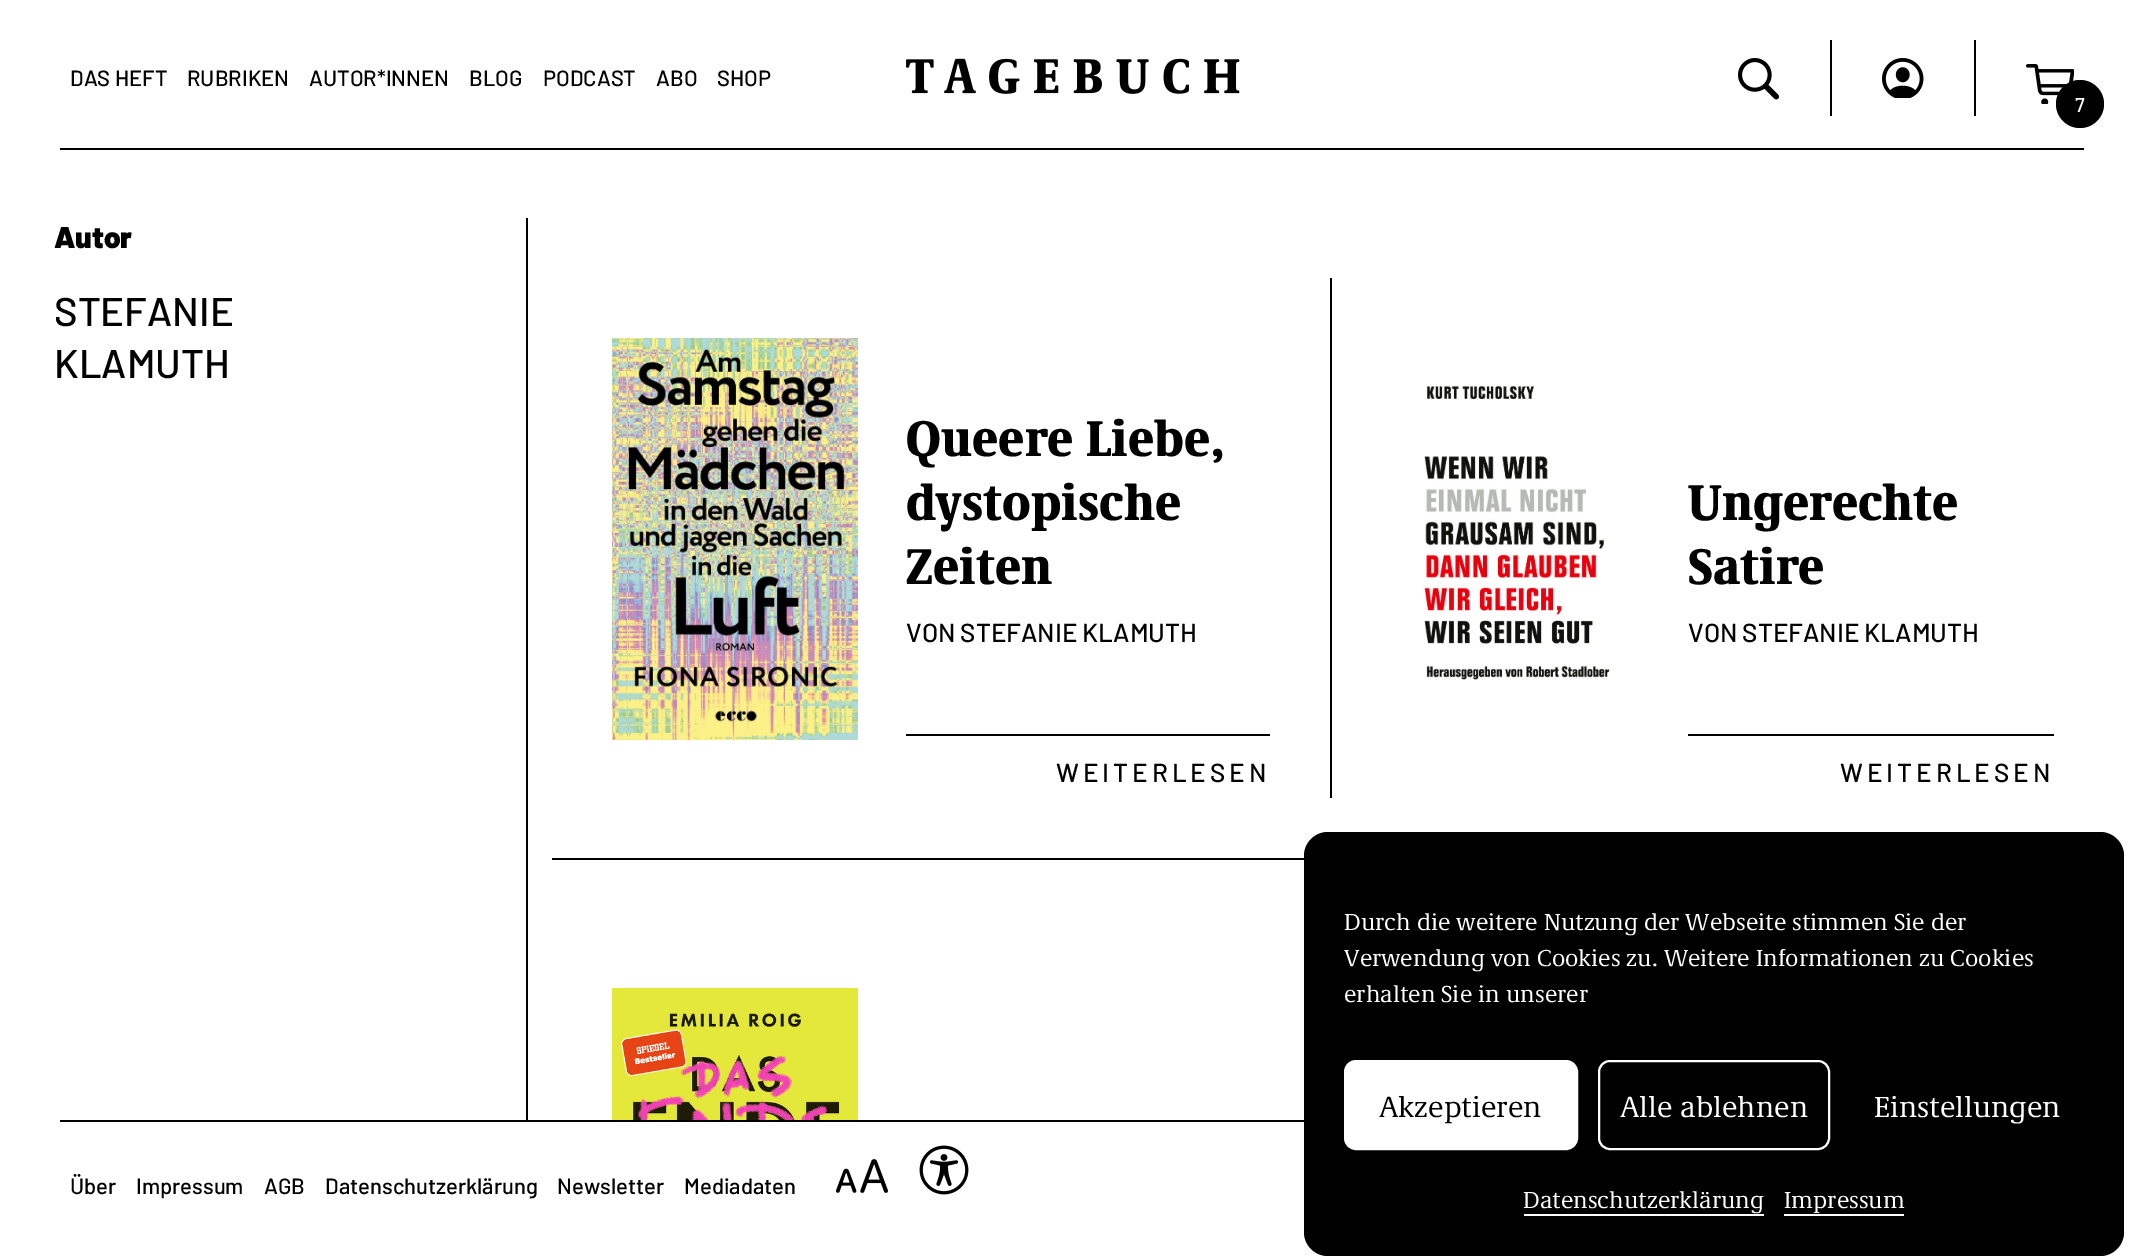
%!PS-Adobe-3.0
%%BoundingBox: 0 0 2144 1256
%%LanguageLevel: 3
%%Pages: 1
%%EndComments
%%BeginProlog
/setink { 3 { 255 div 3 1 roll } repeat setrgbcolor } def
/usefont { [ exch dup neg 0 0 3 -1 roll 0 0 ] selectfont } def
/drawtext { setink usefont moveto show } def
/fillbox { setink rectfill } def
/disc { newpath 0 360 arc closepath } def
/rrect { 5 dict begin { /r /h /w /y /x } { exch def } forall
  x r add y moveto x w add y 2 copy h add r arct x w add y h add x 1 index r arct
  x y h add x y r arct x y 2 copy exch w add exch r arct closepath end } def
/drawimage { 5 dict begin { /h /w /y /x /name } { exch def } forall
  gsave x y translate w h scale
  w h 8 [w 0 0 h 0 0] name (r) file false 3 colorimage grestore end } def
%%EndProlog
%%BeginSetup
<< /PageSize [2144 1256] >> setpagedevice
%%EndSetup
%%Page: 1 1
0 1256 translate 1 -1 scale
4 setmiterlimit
0 0 2144 1256 255 255 255 fillbox
(DAS HEFT) 70 86 /Barlow-Medium 22 0 0 0 drawtext
(RUBRIKEN) 187 86 /Barlow-Medium 22 0 0 0 drawtext
(AUTOR*INNEN) 309 86 /Barlow-Medium 22 0 0 0 drawtext
(BLOG) 469 86 /Barlow-Medium 22 0 0 0 drawtext
(PODCAST) 543 86 /Barlow-Medium 22 0 0 0 drawtext
(ABO) 656 86 /Barlow-Medium 22 0 0 0 drawtext
(SHOP) 717 86 /Barlow-Medium 22 0 0 0 drawtext
(assets/img1.rgb) 906 58 334 36 drawimage
(assets/img2.rgb) 1738 58 41 42 drawimage
1974 40 2 76 0 0 0 fillbox
1830 40 2 76 0 0 0 fillbox
(assets/img3.rgb) 1882 58 42 40 drawimage
(assets/img4.rgb) 2026 64 48 40 drawimage
2080 104 24 disc fill
(7) 2075 112 /Barlow-Medium 20 255 255 255 drawtext
60 148 2024 2 0 0 0 fillbox
526 218 2 902 0 0 0 fillbox
(Autor) 54 248 /Barlow-Black 30 0 0 0 drawtext
(STEFANIE) 54 326 /Barlow-Medium 40 0 0 0 drawtext
(KLAMUTH) 54 378 /Barlow-Medium 40 0 0 0 drawtext
552 858 752 2 0 0 0 fillbox
1330 278 2 520 0 0 0 fillbox
(assets/img5.rgb) 612 338 246 402 drawimage
(Queere Liebe,) 906 456 /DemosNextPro-Black 52 0 0 0 drawtext
(dystopische) 906 520 /DemosNextPro-Black 52 0 0 0 drawtext
(Zeiten) 906 584 /DemosNextPro-Black 52 0 0 0 drawtext
(VON STEFANIE KLAMUTH) 906 642 /Barlow-Medium 26 0 0 0 drawtext
906 734 364 2 0 0 0 fillbox
1056 782 moveto 4 0 (WEITERLESEN) ashow
(assets/img6.rgb) 1423 384 187 296 drawimage
(Ungerechte) 1688 520 /DemosNextPro-Black 52 0 0 0 drawtext
(Satire) 1688 584 /DemosNextPro-Black 52 0 0 0 drawtext
(VON STEFANIE KLAMUTH) 1688 642 /Barlow-Medium 26 0 0 0 drawtext
1688 734 366 2 0 0 0 fillbox
1840 782 moveto 4 0 (WEITERLESEN) ashow
(assets/img7.rgb) 612 988 246 132 drawimage
60 1120 1244 2 0 0 0 fillbox
(Über) 70 1194 /Barlow-Medium 22 0 0 0 drawtext
(Impressum) 136 1194 /Barlow-Medium 22 0 0 0 drawtext
(AGB) 264 1194 /Barlow-Medium 22 0 0 0 drawtext
(Datenschutzerklärung) 325 1194 /Barlow-Medium 22 0 0 0 drawtext
(Newsletter) 557 1194 /Barlow-Medium 22 0 0 0 drawtext
(Mediadaten) 684 1194 /Barlow-Medium 22 0 0 0 drawtext
(assets/img8.rgb) 836 1159 52 34 drawimage
(assets/img9.rgb) 919 1145 50 50 drawimage
1304 832 820 424 24 rrect fill
(Durch die weitere Nutzung der Webseite stimmen Sie der) 1344 930 /DemosNextPro-Regular 24 255 255 255 drawtext
(Verwendung von Cookies zu. Weitere Informationen zu Cookies) 1344 966 /DemosNextPro-Regular 24 255 255 255 drawtext
(erhalten Sie in unserer) 1344 1002 /DemosNextPro-Regular 24 255 255 255 drawtext
1345 1061 232 88 11 rrect gsave fill grestore
2 setlinewidth
stroke
(Akzeptieren) 1379 1117 /DemosNextPro-Regular 30 0 0 0 drawtext
255 255 255 setink
1599 1061 230 88 11 rrect stroke
(Alle ablehnen) 1620 1117 /DemosNextPro-Regular 30 255 255 255 drawtext
(Einstellungen) 1874 1117 /DemosNextPro-Regular 30 255 255 255 drawtext
(Datenschutzerklärung) 1523 1208 /DemosNextPro-Regular 24 255 255 255 drawtext
1524 1214 240 2 255 255 255 fillbox
(Impressum) 1784 1208 /DemosNextPro-Regular 24 255 255 255 drawtext
1784 1214 120 2 255 255 255 fillbox
showpage
%%EOF
